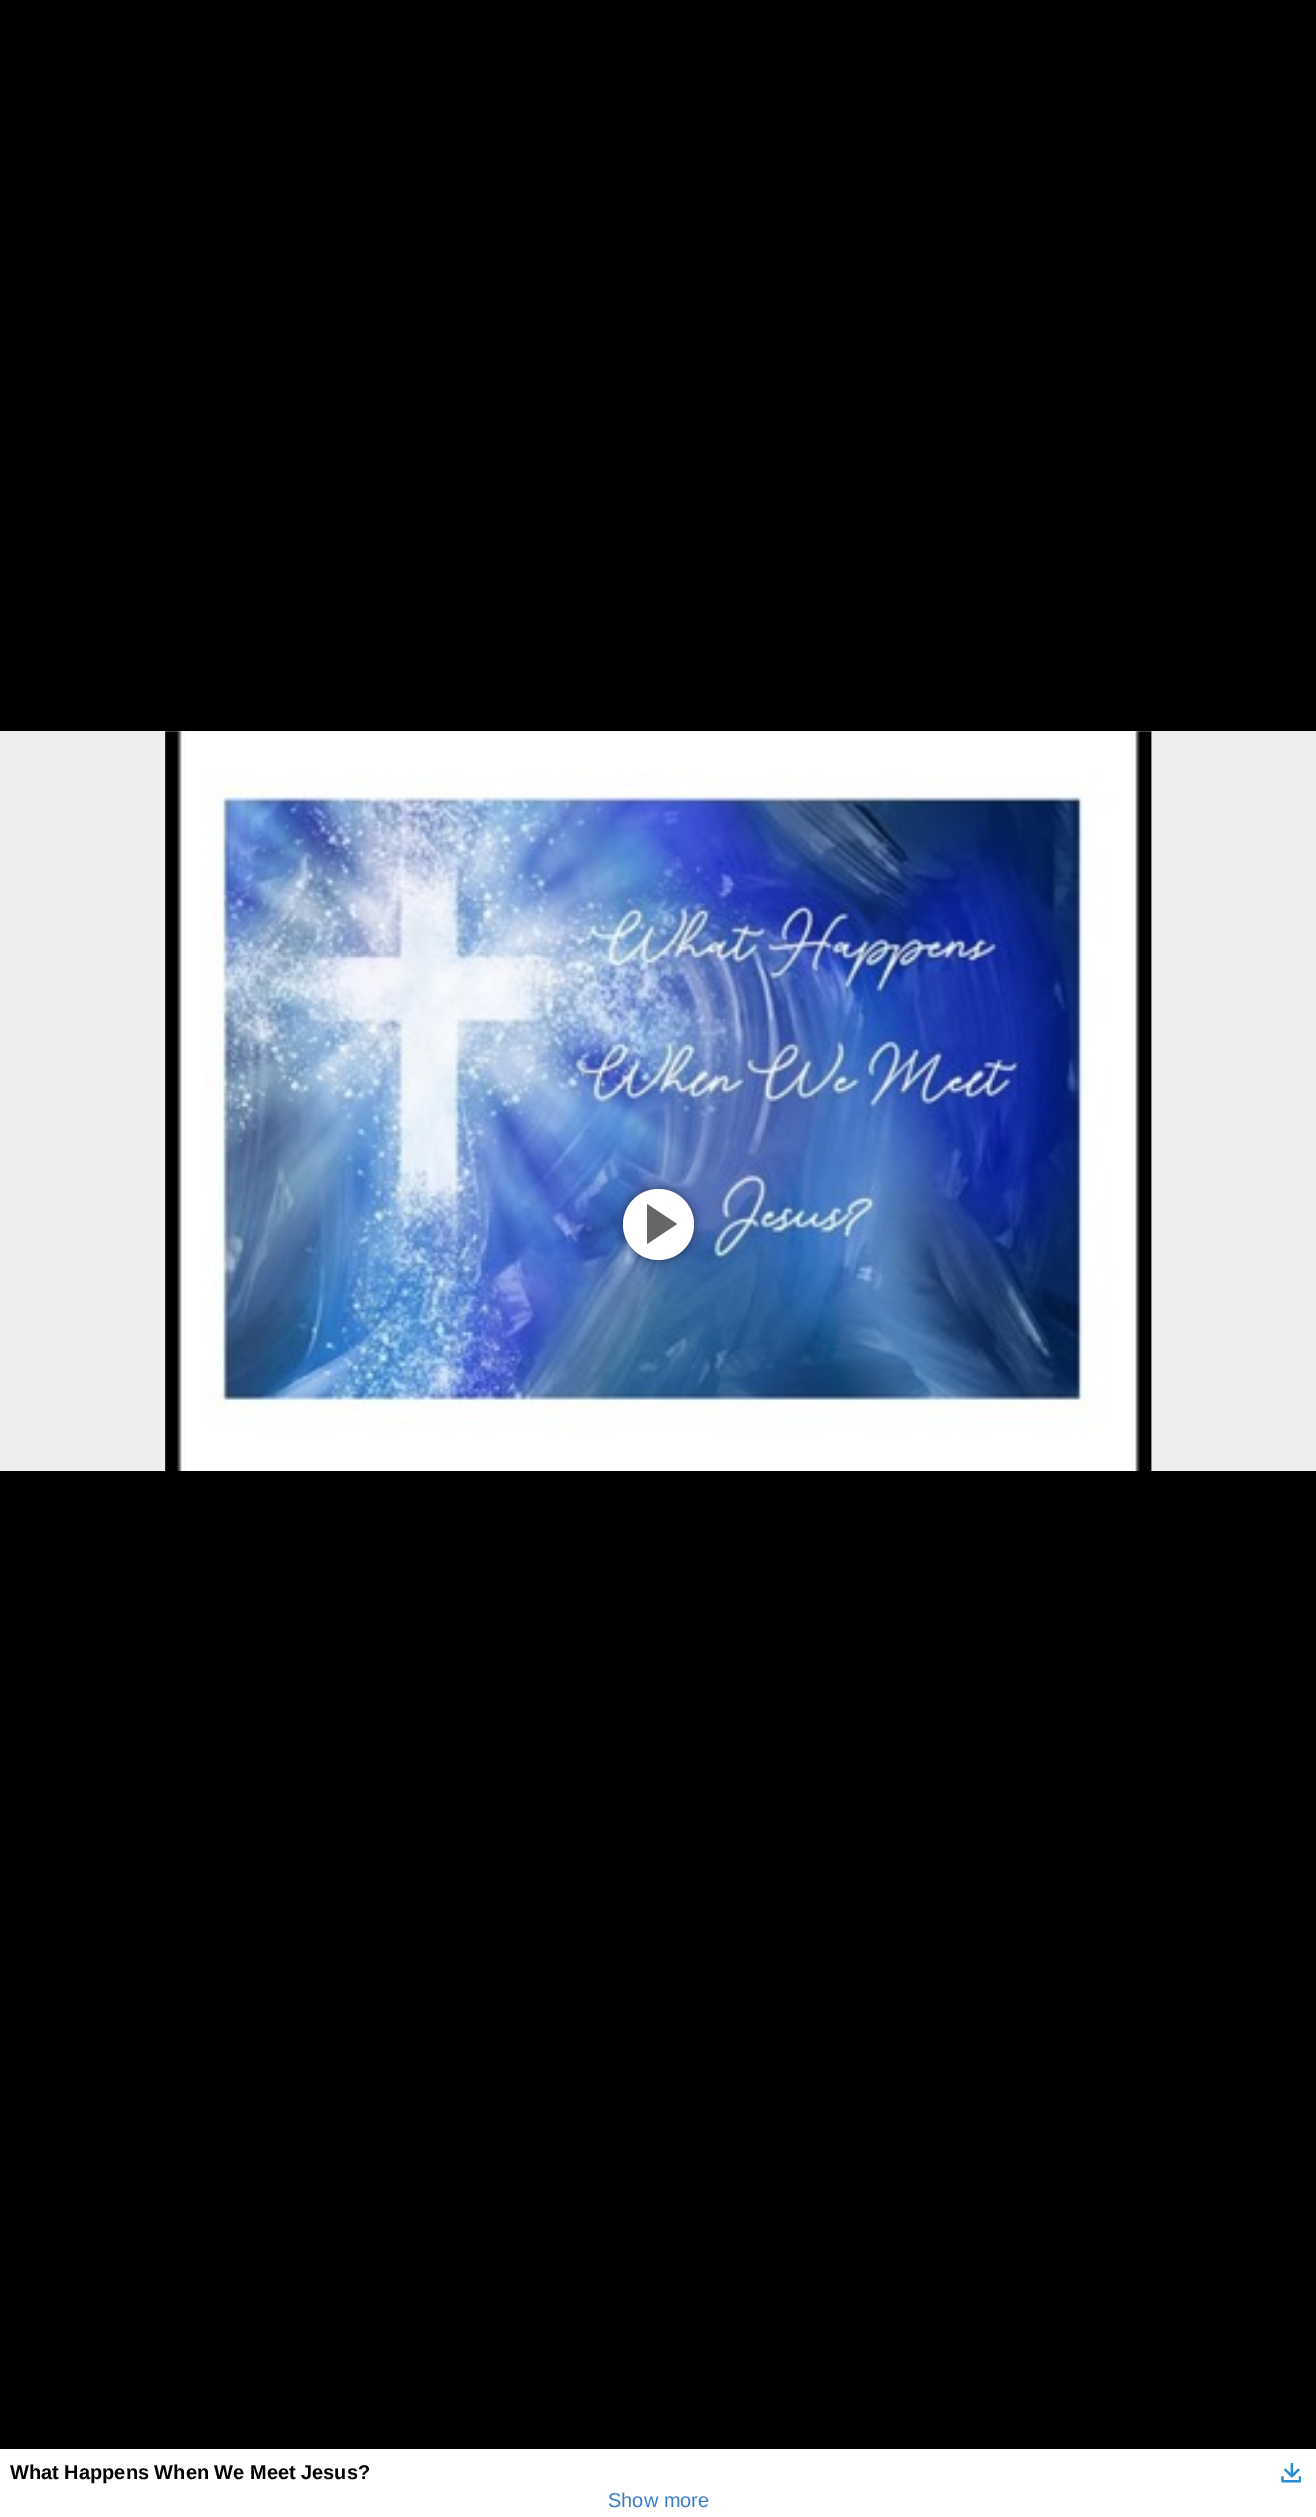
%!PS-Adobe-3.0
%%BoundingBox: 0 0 1316 2517
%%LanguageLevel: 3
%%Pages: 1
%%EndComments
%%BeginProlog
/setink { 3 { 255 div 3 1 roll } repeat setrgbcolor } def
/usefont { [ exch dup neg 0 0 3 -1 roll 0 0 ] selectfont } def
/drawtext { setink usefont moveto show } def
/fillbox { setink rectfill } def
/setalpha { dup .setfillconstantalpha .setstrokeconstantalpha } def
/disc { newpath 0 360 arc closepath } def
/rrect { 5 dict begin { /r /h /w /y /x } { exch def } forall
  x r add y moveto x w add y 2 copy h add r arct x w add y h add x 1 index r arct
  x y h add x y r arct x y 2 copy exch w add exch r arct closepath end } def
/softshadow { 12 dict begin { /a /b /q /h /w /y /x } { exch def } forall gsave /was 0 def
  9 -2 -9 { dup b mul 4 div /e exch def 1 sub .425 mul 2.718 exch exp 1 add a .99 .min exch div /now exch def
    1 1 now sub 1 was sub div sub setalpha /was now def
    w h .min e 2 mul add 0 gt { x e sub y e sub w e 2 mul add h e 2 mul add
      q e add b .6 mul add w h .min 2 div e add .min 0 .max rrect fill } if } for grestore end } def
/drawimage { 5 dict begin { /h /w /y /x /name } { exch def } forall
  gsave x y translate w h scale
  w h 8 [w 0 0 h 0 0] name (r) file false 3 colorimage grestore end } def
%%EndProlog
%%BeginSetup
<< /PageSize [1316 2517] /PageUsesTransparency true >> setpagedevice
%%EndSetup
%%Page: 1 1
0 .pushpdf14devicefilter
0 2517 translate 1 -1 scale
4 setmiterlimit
0 0 1316 2517 255 255 255 fillbox
0 0 1316 2449 0 0 0 fillbox
0 731 1316 740 238 238 238 fillbox
(assets/img1.rgb) 165 731 987 740 drawimage
0 0 0 setink
623 1189 71 71 35.5 5 0.5 softshadow
255 255 255 setink
658.5 1224.5 35.5 disc fill
102 102 102 setink
677 1224 moveto 647 1244 lineto 647 1204 lineto closepath fill
(What Happens When We Meet Jesus?) 10 2479 /LiberationSans-Bold 20 0 0 0 drawtext
(assets/img2.rgb) 1281 2463 20 20 drawimage
(Show more) 608 2507 /LiberationSans-Regular 20 58 122 201 drawtext
.poppdf14devicefilter showpage
%%EOF
